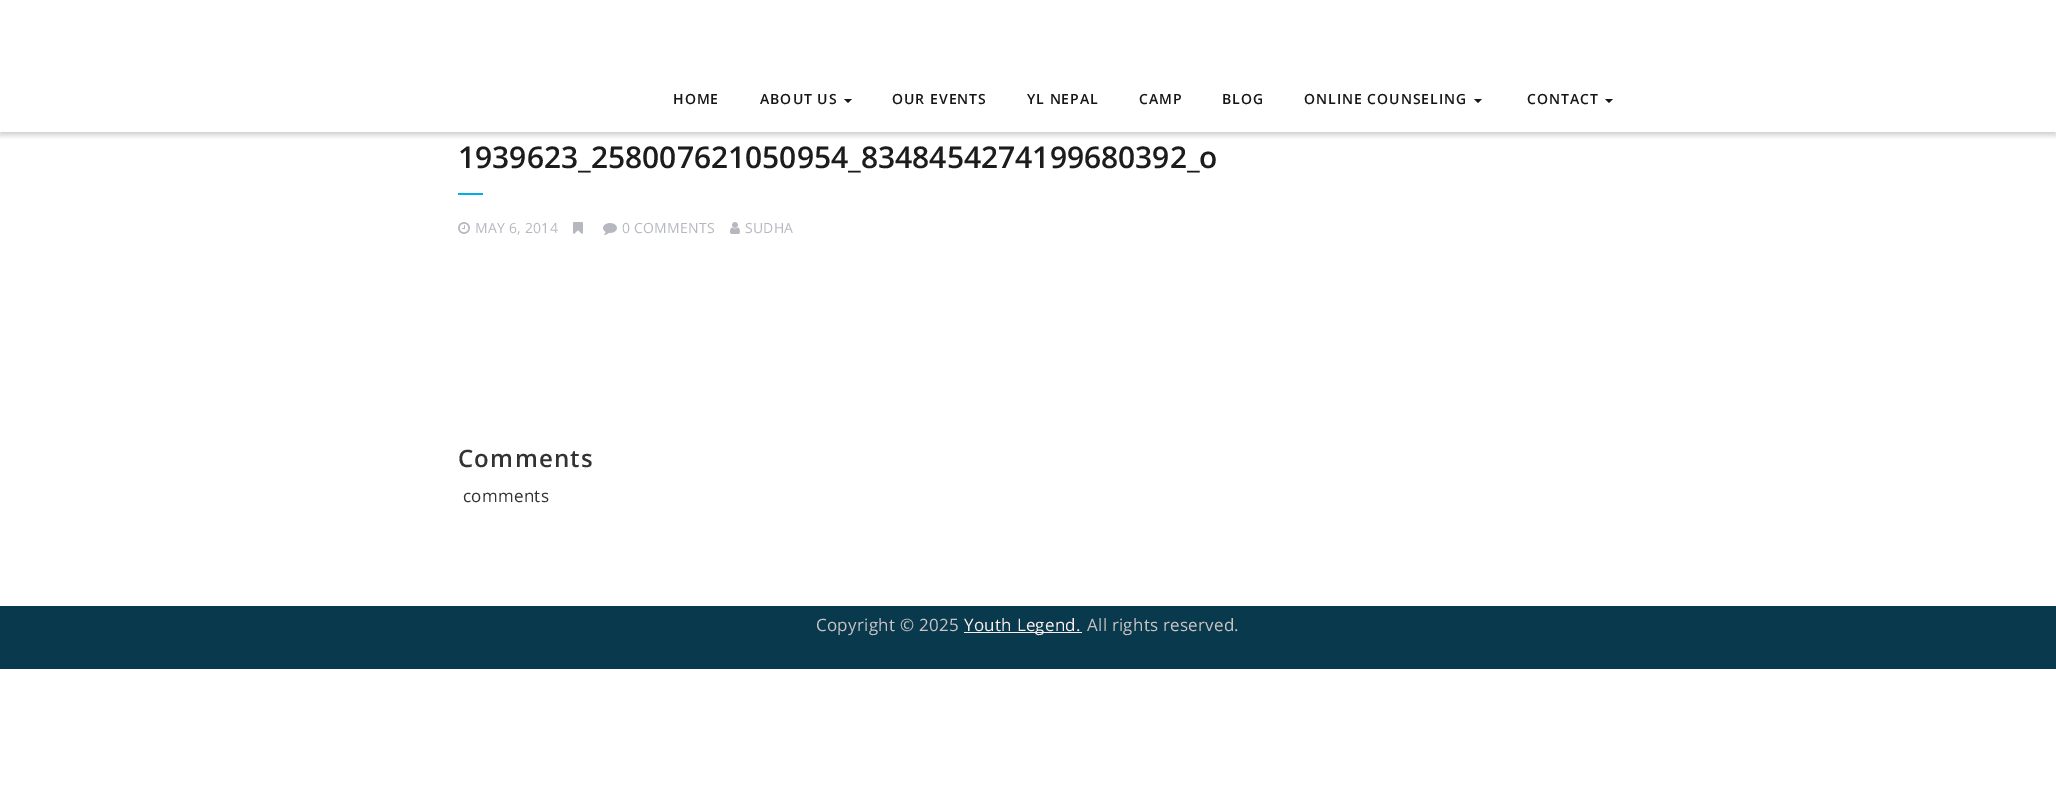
%!PS-Adobe-3.0
%%BoundingBox: 0 0 2056 797
%%LanguageLevel: 3
%%Pages: 1
%%EndComments
%%BeginProlog
/setink { 3 { 255 div 3 1 roll } repeat setrgbcolor } def
/usefont { [ exch dup neg 0 0 3 -1 roll 0 0 ] selectfont } def
/drawtext { setink usefont moveto show } def
/fillbox { setink rectfill } def
/setalpha { dup .setfillconstantalpha .setstrokeconstantalpha } def
/rrect { 5 dict begin { /r /h /w /y /x } { exch def } forall
  x r add y moveto x w add y 2 copy h add r arct x w add y h add x 1 index r arct
  x y h add x y r arct x y 2 copy exch w add exch r arct closepath end } def
/softshadow { 12 dict begin { /a /b /q /h /w /y /x } { exch def } forall gsave /was 0 def
  9 -2 -9 { dup b mul 4 div /e exch def 1 sub .425 mul 2.718 exch exp 1 add a .99 .min exch div /now exch def
    1 1 now sub 1 was sub div sub setalpha /was now def
    w h .min e 2 mul add 0 gt { x e sub y e sub w e 2 mul add h e 2 mul add
      q e add b .6 mul add w h .min 2 div e add .min 0 .max rrect fill } if } for grestore end } def
/drawimage { 5 dict begin { /h /w /y /x /name } { exch def } forall
  gsave x y translate w h scale
  w h 8 [w 0 0 h 0 0] name (r) file false 3 colorimage grestore end } def
%%EndProlog
%%BeginSetup
<< /PageSize [2056 797] /PageUsesTransparency true >> setpagedevice
%%EndSetup
%%Page: 1 1
0 .pushpdf14devicefilter
0 797 translate 1 -1 scale
4 setmiterlimit
0 0 2056 797 255 255 255 fillbox
gsave
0 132 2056 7 rectclip
0 0 0 setink
0 3 2056 132 0 3 0.2 softshadow
grestore
/OpenSans-SemiBold 14 usefont
22 22 22 setink
673 104 moveto 1 0 (HOME) ashow
760 104 moveto 1 0 (ABOUT US) ashow
844 99 moveto 852 99 lineto 848 103 lineto closepath fill
892 104 moveto 1 0 (OUR EVENTS) ashow
1027 104 moveto 1 0 (YL NEPAL) ashow
1139 104 moveto 1 0 (CAMP) ashow
1222 104 moveto 1 0 (BLOG) ashow
1304 104 moveto 1 0 (ONLINE COUNSELING) ashow
1474 99 moveto 1482 99 lineto 1478 103 lineto closepath fill
1527 104 moveto 1 0 (CONTACT) ashow
1605 99 moveto 1613 99 lineto 1609 103 lineto closepath fill
(1939623_258007621050954_8348454274199680392_o) 458 168 /OpenSans-SemiBold 30 28 28 28 drawtext
458 193 25 2 0 173 237 fillbox
(assets/img1.rgb) 458 222 12 12 drawimage
/OpenSans-Regular 14 usefont
181 184 191 setink
475 233 moveto 0.25 0 (MAY 6, 2014) ashow
(assets/img2.rgb) 573 222 10 12 drawimage
(assets/img3.rgb) 603 223 14 12 drawimage
622 233 moveto 0.25 0 (0 COMMENTS) ashow
(assets/img4.rgb) 730 222 10 12 drawimage
745 233 moveto 0.25 0 (SUDHA) ashow
/OpenSans-SemiBold 24 usefont
51 51 51 setink
458 467 moveto 1.25 0 (Comments) ashow
/OpenSans-Regular 17 usefont
463 502 moveto 0.25 0 (comments) ashow
0 606 2056 63 9 57 76 fillbox
201 195 196 setink
816 631 moveto 0.25 0 (Copyright © 2025) ashow
964 632 118 1 252 238 238 fillbox
964 631 moveto 0.25 0 (Youth Legend.) ashow
201 195 196 setink
1087 631 moveto 0.25 0 (All rights reserved.) ashow
.poppdf14devicefilter showpage
%%EOF
